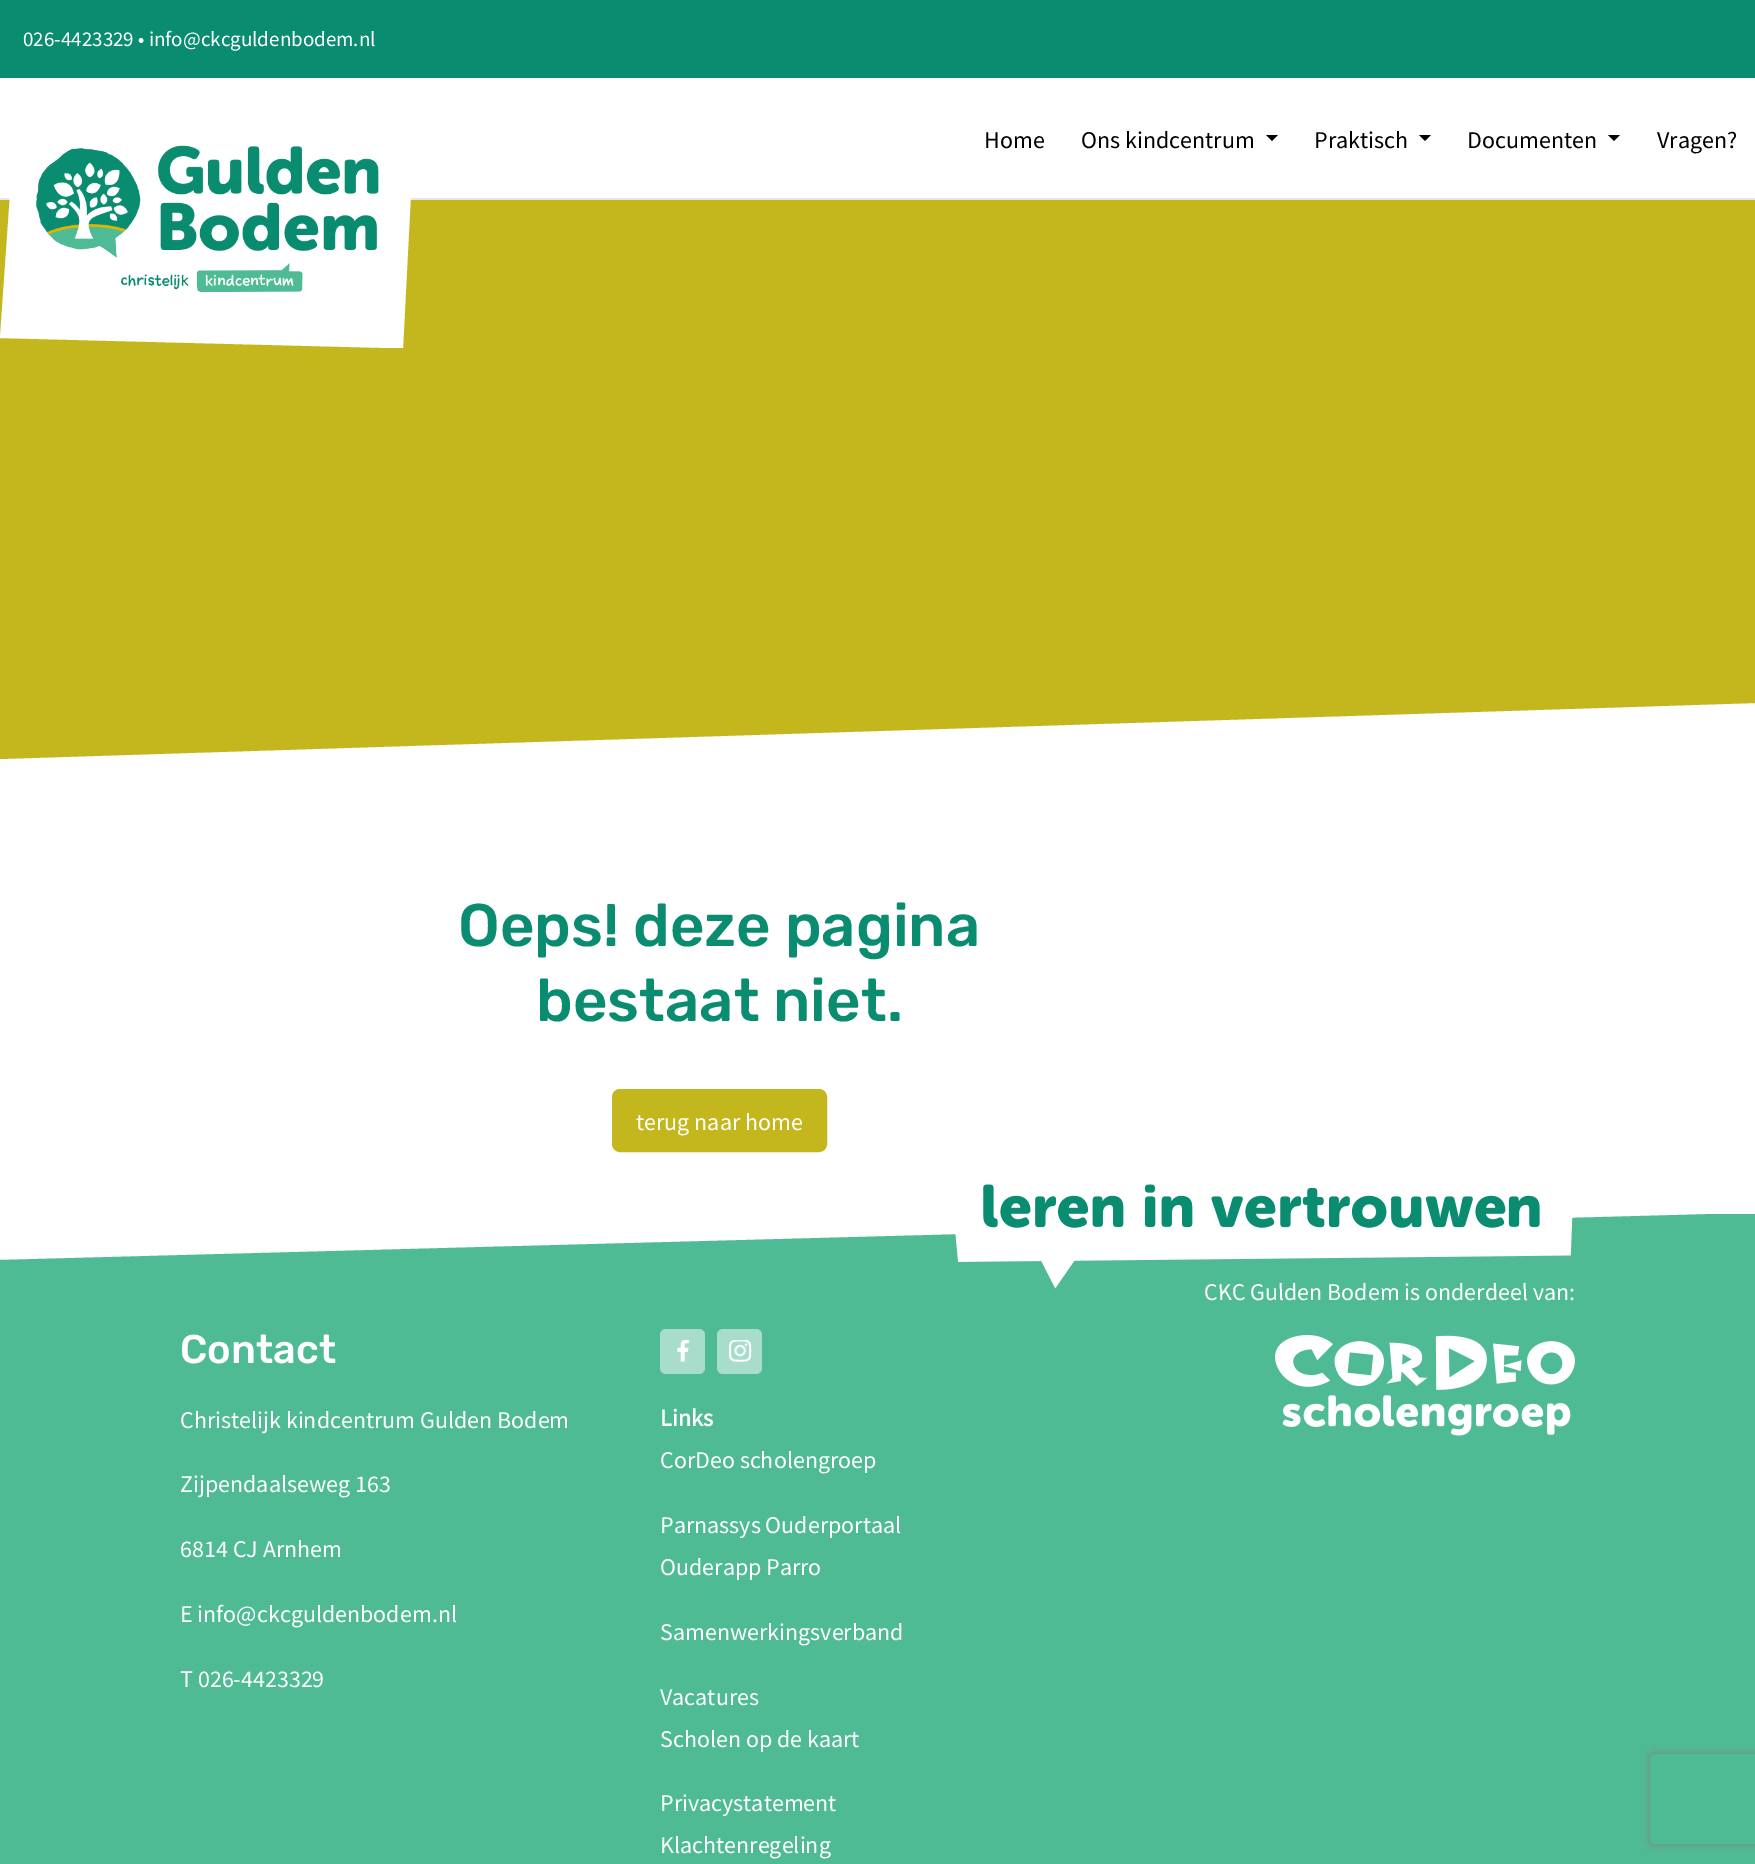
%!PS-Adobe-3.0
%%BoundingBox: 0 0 1755 1864
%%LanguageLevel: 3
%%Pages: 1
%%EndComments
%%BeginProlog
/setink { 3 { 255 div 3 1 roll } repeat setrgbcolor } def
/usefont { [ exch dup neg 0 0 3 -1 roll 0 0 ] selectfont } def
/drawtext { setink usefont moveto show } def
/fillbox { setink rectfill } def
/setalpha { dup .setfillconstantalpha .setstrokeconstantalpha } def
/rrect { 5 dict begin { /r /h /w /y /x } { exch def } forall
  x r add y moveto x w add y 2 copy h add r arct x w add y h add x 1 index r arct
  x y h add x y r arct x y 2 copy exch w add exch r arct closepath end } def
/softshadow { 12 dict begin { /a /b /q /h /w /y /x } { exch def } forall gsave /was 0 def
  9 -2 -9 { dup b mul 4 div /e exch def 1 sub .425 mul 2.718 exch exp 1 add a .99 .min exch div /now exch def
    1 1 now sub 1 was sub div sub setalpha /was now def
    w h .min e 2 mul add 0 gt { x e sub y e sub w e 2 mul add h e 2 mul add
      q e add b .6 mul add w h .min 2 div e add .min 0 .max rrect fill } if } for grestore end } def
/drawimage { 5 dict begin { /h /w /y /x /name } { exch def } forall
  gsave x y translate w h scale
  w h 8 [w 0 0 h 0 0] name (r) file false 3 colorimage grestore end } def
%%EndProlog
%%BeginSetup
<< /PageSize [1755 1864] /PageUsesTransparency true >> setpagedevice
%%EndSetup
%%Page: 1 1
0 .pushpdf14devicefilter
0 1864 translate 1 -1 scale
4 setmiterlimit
0 0 1755 1864 255 255 255 fillbox
0 0 1755 78 10 140 112 fillbox
(026-4423329 • info@ckcguldenbodem.nl) 23 46 /SourceSansPro-Regular 21 255 255 255 drawtext
0 198 1755 2 230 230 230 fillbox
195 183 29 setink
0 200 moveto 0 759 lineto 1755 703 lineto 1755 200 lineto closepath fill
255 255 255 setink
389 348 moveto 0 338 lineto 17 95 lineto 416 95 lineto 403 348 lineto closepath fill
(assets/img1.rgb) 36 145 343 148 drawimage
(Home) 984 148 /SourceSansPro-Regular 24 0 0 0 drawtext
(Ons kindcentrum) 1081 148 /SourceSansPro-Regular 24 0 0 0 drawtext
1266 135 moveto 1278 135 lineto 1272 141 lineto closepath fill
(Praktisch) 1314 148 /SourceSansPro-Regular 24 0 0 0 drawtext
1419 135 moveto 1431 135 lineto 1425 141 lineto closepath fill
(Documenten) 1467 148 /SourceSansPro-Regular 24 0 0 0 drawtext
1608 135 moveto 1620 135 lineto 1614 141 lineto closepath fill
(Vragen?) 1657 148 /SourceSansPro-Regular 24 0 0 0 drawtext
(Oeps! deze pagina) 458 946 /Rubik-Light 60 10 140 112 drawtext
(bestaat niet.) 536 1021 /Rubik-Light 60 10 140 112 drawtext
195 183 29 setink
613 1090 213 61 7 rrect gsave fill grestore
2 setlinewidth
stroke
(terug naar home) 636 1130 /SourceSansPro-Regular 24 255 255 255 drawtext
78 187 148 setink
0 1260 moveto 0 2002 lineto 1755 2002 lineto 1755 1214 lineto 1715 1214 lineto closepath fill
(CKC Gulden Bodem is onderdeel van:) 1204 1300 /SourceSansPro-Regular 24 255 255 255 drawtext
(assets/img2.rgb) 955 1184 618 105 drawimage
(assets/img3.rgb) 1275 1335 300 101 drawimage
(Contact) 180 1363 /Rubik-Light 40 255 255 255 drawtext
(Christelijk kindcentrum Gulden Bodem) 180 1428 /SourceSansPro-Regular 24 255 255 255 drawtext
(Zijpendaalseweg 163) 180 1492 /SourceSansPro-Regular 24 255 255 255 drawtext
(6814 CJ Arnhem) 180 1557 /SourceSansPro-Regular 24 255 255 255 drawtext
(E info@ckcguldenbodem.nl) 180 1622 /SourceSansPro-Regular 24 255 255 255 drawtext
(T 026-4423329) 180 1687 /SourceSansPro-Regular 24 255 255 255 drawtext
167 221 202 setink
660 1329 45 45 6 rrect fill
717 1329 45 45 6 rrect fill
(assets/img4.rgb) 677 1340 12 22 drawimage
(assets/img5.rgb) 729 1340 23 22 drawimage
(Links) 660 1426 /SourceSansPro-Bold 24 255 255 255 drawtext
(CorDeo scholengroep) 660 1468 /SourceSansPro-Regular 24 255 255 255 drawtext
(Parnassys Ouderportaal) 660 1533 /SourceSansPro-Regular 24 255 255 255 drawtext
(Ouderapp Parro) 660 1575 /SourceSansPro-Regular 24 255 255 255 drawtext
(Samenwerkingsverband) 660 1640 /SourceSansPro-Regular 24 255 255 255 drawtext
(Vacatures) 660 1705 /SourceSansPro-Regular 24 255 255 255 drawtext
(Scholen op de kaart) 660 1747 /SourceSansPro-Regular 24 255 255 255 drawtext
(Privacystatement) 660 1811 /SourceSansPro-Regular 24 255 255 255 drawtext
(Klachtenregeling) 660 1853 /SourceSansPro-Regular 24 255 255 255 drawtext
gsave
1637 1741 moveto 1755 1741 lineto 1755 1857 lineto 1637 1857 lineto closepath 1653 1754 moveto 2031 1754 lineto 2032.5 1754 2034 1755.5 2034 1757 curveto 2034 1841 lineto 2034 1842.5 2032.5 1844 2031 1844 curveto 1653 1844 lineto 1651.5 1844 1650 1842.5 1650 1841 curveto 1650 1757 lineto 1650 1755.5 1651.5 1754 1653 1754 curveto closepath eoclip newpath
128 128 128 setink
1650 1754 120 90 3 4 1 softshadow
grestore
.poppdf14devicefilter showpage
%%EOF
